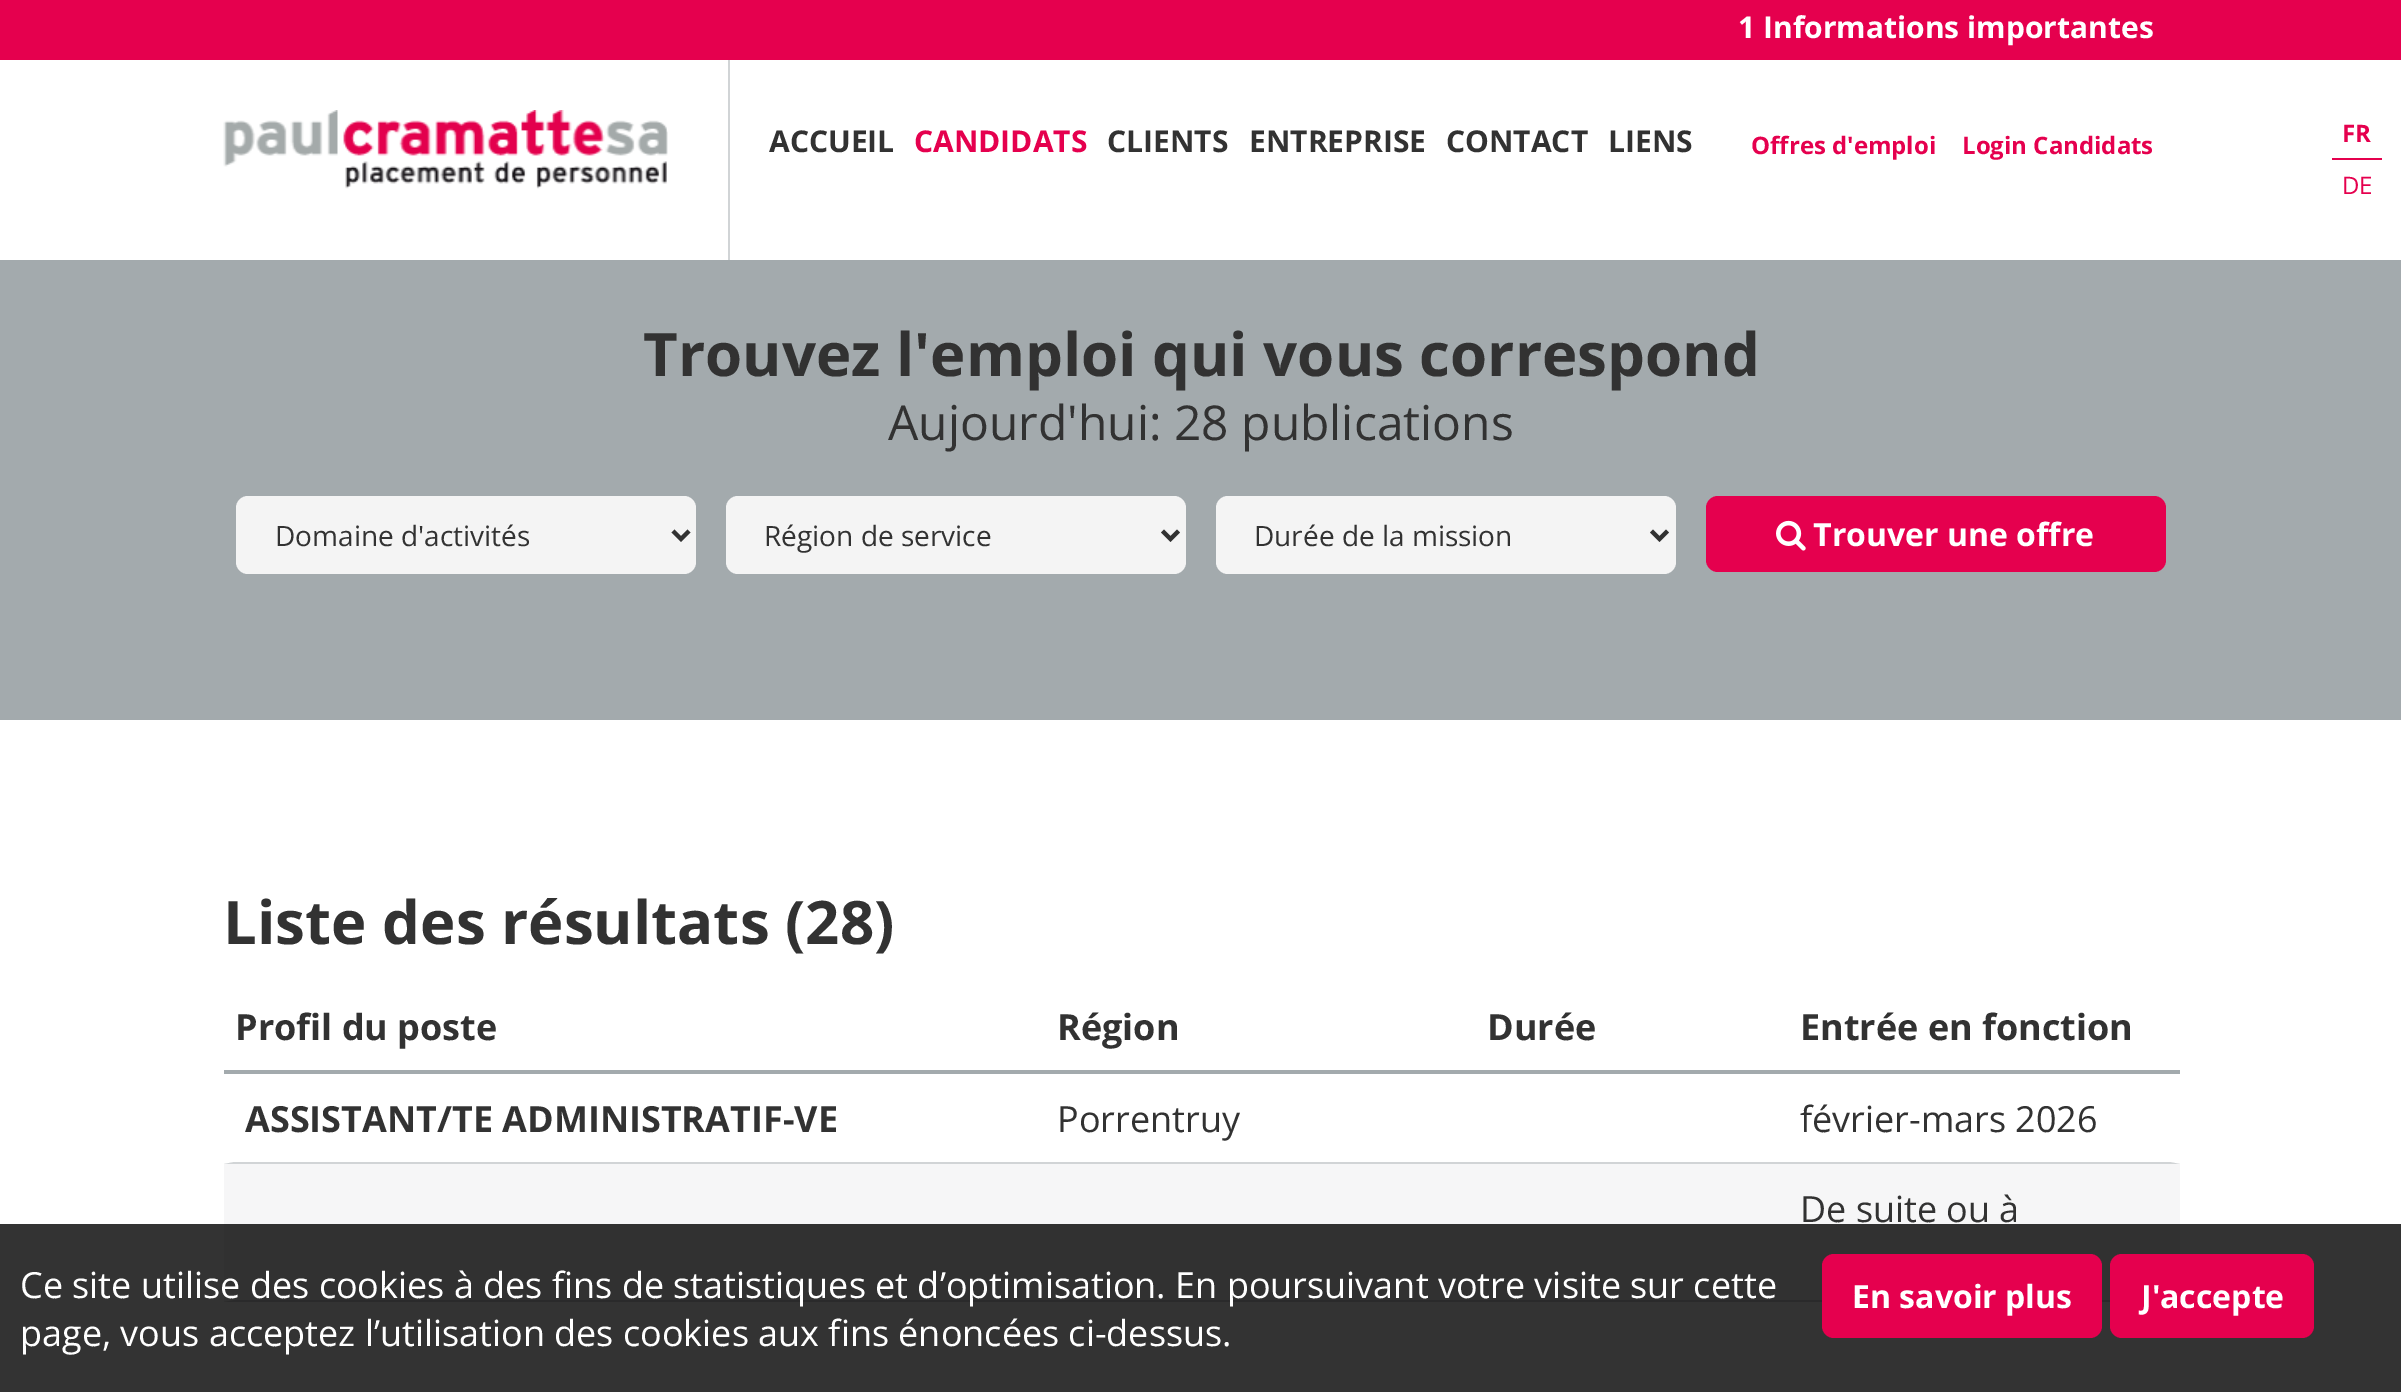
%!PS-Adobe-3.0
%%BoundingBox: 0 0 2401 1392
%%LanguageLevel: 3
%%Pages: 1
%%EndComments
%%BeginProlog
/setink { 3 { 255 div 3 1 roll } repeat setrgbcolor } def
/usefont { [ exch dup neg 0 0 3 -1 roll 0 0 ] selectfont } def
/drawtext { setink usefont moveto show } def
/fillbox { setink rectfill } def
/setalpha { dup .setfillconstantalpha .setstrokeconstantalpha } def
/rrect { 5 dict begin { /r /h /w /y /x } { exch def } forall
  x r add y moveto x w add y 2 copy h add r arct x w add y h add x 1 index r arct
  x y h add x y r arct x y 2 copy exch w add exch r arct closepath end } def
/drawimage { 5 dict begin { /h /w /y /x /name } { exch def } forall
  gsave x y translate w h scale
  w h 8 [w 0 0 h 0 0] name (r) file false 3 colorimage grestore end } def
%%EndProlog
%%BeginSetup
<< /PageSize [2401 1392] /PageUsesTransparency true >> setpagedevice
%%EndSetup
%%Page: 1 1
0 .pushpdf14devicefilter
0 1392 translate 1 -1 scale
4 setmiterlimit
0 0 2401 1392 255 255 255 fillbox
0 0 2401 60 229 0 78 fillbox
(1 Informations importantes) 1738 38 /OpenSans-Bold 30 255 255 255 drawtext
(assets/img1.rgb) 223 110 445 79 drawimage
728 60 2 200 209 212 214 fillbox
(ACCUEIL) 769 152 /OpenSans-Bold 30 50 50 50 drawtext
(CANDIDATS) 914 152 /OpenSans-Bold 30 229 0 78 drawtext
(CLIENTS) 1107 152 /OpenSans-Bold 30 50 50 50 drawtext
(ENTREPRISE) 1249 152 /OpenSans-Bold 30 50 50 50 drawtext
(CONTACT) 1446 152 /OpenSans-Bold 30 50 50 50 drawtext
(LIENS) 1608 152 /OpenSans-Bold 30 50 50 50 drawtext
(Offres d'emploi) 1751 154 /OpenSans-Bold 24 229 0 78 drawtext
(Login Candidats) 1962 154 /OpenSans-Bold 24 229 0 78 drawtext
2332 158 50 2 229 0 78 fillbox
(FR) 2342 142 /OpenSans-Bold 24 229 0 78 drawtext
(DE) 2342 194 /OpenSans-Regular 24 229 0 78 drawtext
0 260 2401 460 163 170 173 fillbox
(Trouvez l'emploi qui vous correspond) 643 376 /OpenSans-Bold 60 50 50 50 drawtext
(Aujourd'hui: 28 publications) 888 440 /OpenSans-Regular 48 50 50 50 drawtext
244 244 244 setink
236 496 460 78 12 rrect fill
50 50 50 setink
4 setlinewidth
673 531 moveto 681 539 lineto 689 531 lineto stroke
(Domaine d'activités) 275 546 /OpenSans-Regular 28 50 50 50 drawtext
244 244 244 setink
726 496 460 78 12 rrect fill
50 50 50 setink
1162.5 531 moveto 1170.5 539 lineto 1178.5 531 lineto stroke
(Région de service) 764 546 /OpenSans-Regular 28 50 50 50 drawtext
244 244 244 setink
1216 496 460 78 12 rrect fill
50 50 50 setink
1651.5 531 moveto 1659.5 539 lineto 1667.5 531 lineto stroke
(Durée de la mission) 1254 546 /OpenSans-Regular 28 50 50 50 drawtext
229 0 78 setink
1706 496 460 76 12 rrect fill
(assets/img2.rgb) 1776 520 30 31 drawimage
(Trouver une offre) 1813 546 /OpenSans-Bold 32 255 255 255 drawtext
(Liste des résultats \(28\)) 223 944 /OpenSans-Bold 60 50 50 50 drawtext
224 1070 1956 4 163 170 173 fillbox
(Profil du poste) 235 1040 /OpenSans-Bold 36 50 50 50 drawtext
(Région) 1057 1040 /OpenSans-Bold 36 50 50 50 drawtext
(Durée) 1487 1040 /OpenSans-Bold 36 50 50 50 drawtext
(Entrée en fonction) 1800 1040 /OpenSans-Bold 36 50 50 50 drawtext
209 212 214 setink
1044 1164 moveto 224 1164 lineto 234 1162 lineto 1044 1162 lineto closepath fill
(ASSISTANT/TE ADMINISTRATIF-VE) 245 1132 /OpenSans-Bold 36 50 50 50 drawtext
1044 1162 744 2 209 212 214 fillbox
(Porrentruy) 1057 1132 /OpenSans-Regular 36 50 50 50 drawtext
209 212 214 setink
2180 1164 moveto 1788 1164 lineto 1788 1162 lineto 2170 1162 lineto closepath fill
(février-mars 2026) 1800 1132 /OpenSans-Regular 36 50 50 50 drawtext
224 1164 820 138 246 246 247 fillbox
209 212 214 setink
1044 1302 moveto 224 1302 lineto 234 1300 lineto 1044 1300 lineto closepath fill
1044 1164 1136 136 246 246 247 fillbox
1044 1300 744 2 209 212 214 fillbox
2180 1302 moveto 1788 1302 lineto 1788 1300 lineto 2170 1300 lineto closepath fill
(De suite ou à) 1800 1222 /OpenSans-Regular 36 50 50 50 drawtext
0.8 setalpha
0 1224 2401 168 0 0 0 fillbox
1 setalpha
(Ce site utilise des cookies à des fins de statistiques et d’optimisation. En poursuivant votre visite sur cette) 20 1298 /OpenSans-Regular 36 255 255 255 drawtext
(page, vous acceptez l’utilisation des cookies aux fins énoncées ci-dessus.) 20 1346 /OpenSans-Regular 36 255 255 255 drawtext
229 0 78 setink
1822 1254 280 84 12 rrect fill
(En savoir plus) 1852 1308 /OpenSans-Bold 32 255 255 255 drawtext
229 0 78 setink
2110 1254 204 84 12 rrect fill
(J'accepte) 2141 1308 /OpenSans-Bold 32 255 255 255 drawtext
.poppdf14devicefilter showpage
%%EOF
